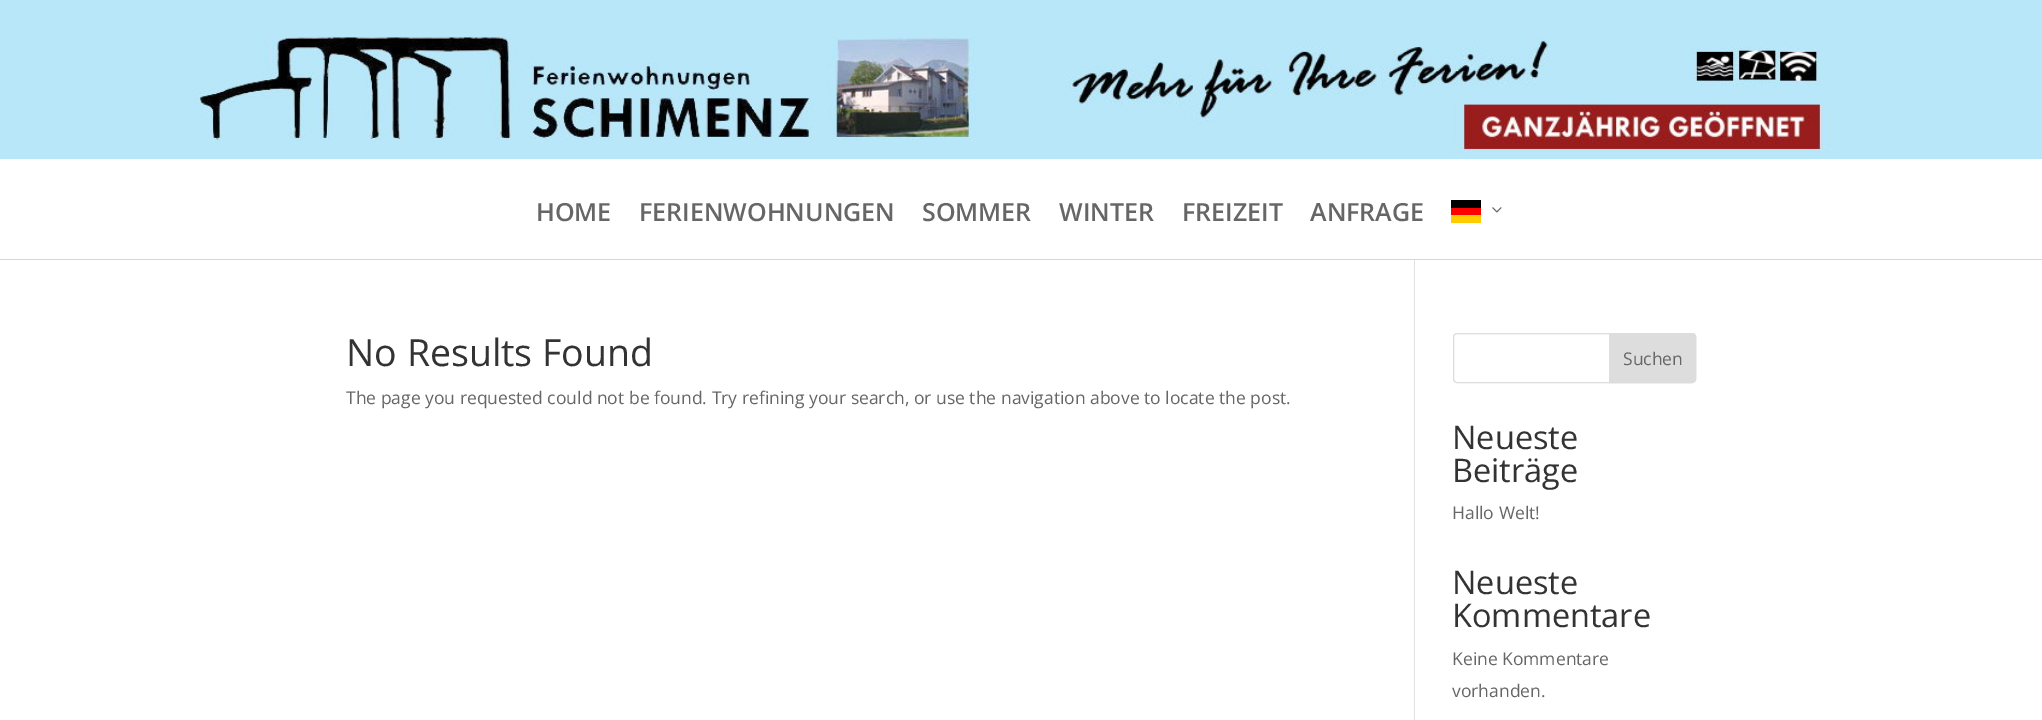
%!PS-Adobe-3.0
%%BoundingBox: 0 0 2042 720
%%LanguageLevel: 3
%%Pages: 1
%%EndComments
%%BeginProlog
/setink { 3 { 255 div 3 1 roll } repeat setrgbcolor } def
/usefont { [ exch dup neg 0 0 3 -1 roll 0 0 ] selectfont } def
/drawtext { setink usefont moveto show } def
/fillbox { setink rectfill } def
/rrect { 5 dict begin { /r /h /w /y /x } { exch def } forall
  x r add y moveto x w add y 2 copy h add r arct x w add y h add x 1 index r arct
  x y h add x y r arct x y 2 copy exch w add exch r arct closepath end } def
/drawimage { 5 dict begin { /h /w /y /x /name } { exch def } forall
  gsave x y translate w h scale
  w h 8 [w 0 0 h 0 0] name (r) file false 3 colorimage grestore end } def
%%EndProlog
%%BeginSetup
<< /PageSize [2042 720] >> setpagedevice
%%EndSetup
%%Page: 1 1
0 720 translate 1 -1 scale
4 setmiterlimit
0 0 2042 720 255 255 255 fillbox
0 0 2042 159 184 231 249 fillbox
(assets/img1.rgb) 194 37 782 103 drawimage
(assets/img2.rgb) 1066 37 772 116 drawimage
0 259 2042 1 214 214 214 fillbox
(HOME) 536 221 /OpenSans-SemiBold 25 102 102 102 drawtext
(FERIENWOHNUNGEN) 639 221 /OpenSans-SemiBold 25 102 102 102 drawtext
(SOMMER) 922 221 /OpenSans-SemiBold 25 102 102 102 drawtext
(WINTER) 1059 221 /OpenSans-SemiBold 25 102 102 102 drawtext
(FREIZEIT) 1182 221 /OpenSans-SemiBold 25 102 102 102 drawtext
(ANFRAGE) 1310 221 /OpenSans-SemiBold 25 102 102 102 drawtext
1451 215 30 8 255 204 0 fillbox
1451 200 30 8 0 0 0 fillbox
1451 208 30 7 255 0 0 fillbox
(assets/img3.rgb) 1492 207 10 6 drawimage
1414 260 1 460 226 226 226 fillbox
(No Results Found) 346 366 /OpenSans-Regular 37.5 51 51 51 drawtext
(The page you requested could not be found. Try refining your search, or use the navigation above to locate the post.) 346 404 /OpenSans-Regular 17.5 102 102 102 drawtext
221 221 221 setink
1453.5 333.5 242 49 3.5 rrect stroke
1609.5 333.5 moveto 1692 333.5 lineto 1694 333.5 1695.5 335 1695.5 337 curveto 1695.5 379 lineto 1695.5 381 1694 382.5 1692 382.5 curveto 1609.5 382.5 lineto closepath gsave fill grestore
stroke
(Suchen) 1623 365 /OpenSans-Regular 17.5 102 102 102 drawtext
(Neueste) 1452 449 /OpenSans-Regular 32.5 51 51 51 drawtext
(Beiträge) 1452 482 /OpenSans-Regular 32.5 51 51 51 drawtext
(Hallo Welt!) 1452 519 /OpenSans-Regular 17.5 102 102 102 drawtext
(Neueste) 1452 594 /OpenSans-Regular 32.5 51 51 51 drawtext
(Kommentare) 1452 627 /OpenSans-Regular 32.5 51 51 51 drawtext
(Keine Kommentare) 1452 665 /OpenSans-Regular 17.5 102 102 102 drawtext
(vorhanden.) 1452 697 /OpenSans-Regular 17.5 102 102 102 drawtext
showpage
%%EOF
